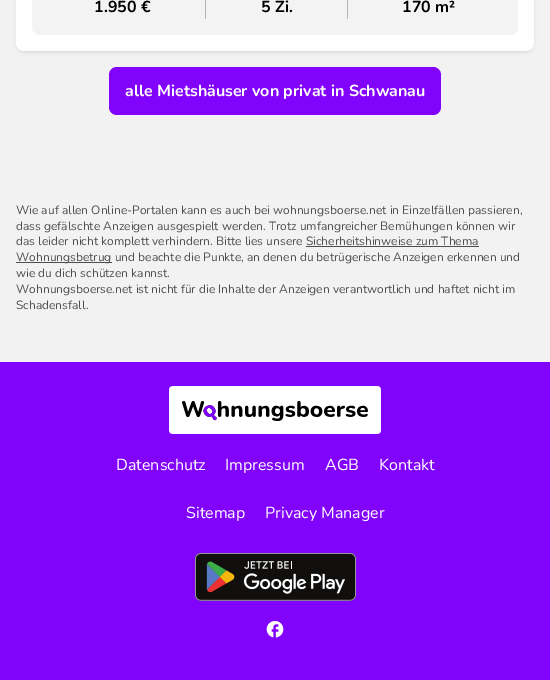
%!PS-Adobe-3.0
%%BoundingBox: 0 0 550 680
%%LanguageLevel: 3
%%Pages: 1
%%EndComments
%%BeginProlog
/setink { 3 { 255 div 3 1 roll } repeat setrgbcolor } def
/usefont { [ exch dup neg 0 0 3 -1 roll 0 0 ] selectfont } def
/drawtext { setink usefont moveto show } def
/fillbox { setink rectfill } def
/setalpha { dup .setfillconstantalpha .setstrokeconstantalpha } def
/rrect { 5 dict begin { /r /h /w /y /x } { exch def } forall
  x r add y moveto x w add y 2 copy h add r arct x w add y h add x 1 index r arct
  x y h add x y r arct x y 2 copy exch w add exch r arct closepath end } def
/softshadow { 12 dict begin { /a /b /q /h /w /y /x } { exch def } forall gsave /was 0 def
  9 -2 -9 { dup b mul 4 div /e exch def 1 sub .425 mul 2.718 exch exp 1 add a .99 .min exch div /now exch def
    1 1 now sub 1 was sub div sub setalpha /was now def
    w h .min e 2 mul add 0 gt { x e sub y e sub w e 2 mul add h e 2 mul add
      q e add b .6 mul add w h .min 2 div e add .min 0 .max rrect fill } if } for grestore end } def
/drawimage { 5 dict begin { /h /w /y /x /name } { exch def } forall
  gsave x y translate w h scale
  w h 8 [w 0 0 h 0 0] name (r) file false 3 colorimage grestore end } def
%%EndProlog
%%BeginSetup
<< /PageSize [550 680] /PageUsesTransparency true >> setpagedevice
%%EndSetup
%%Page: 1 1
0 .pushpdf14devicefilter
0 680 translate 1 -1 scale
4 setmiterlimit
0 0 550 680 242 242 242 fillbox
48 49 51 setink
16 -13 518 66 8 1.5 0.1 softshadow
255 255 255 setink
16 -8 518 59 8 rrect fill
243 243 243 setink
32 -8 486 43 8 rrect fill
(1.950 €) 94 12 /Nunito-Bold 16 0 0 0 drawtext
205 0 1 19 180 180 180 fillbox
(5 Zi.) 261 12 /Nunito-Bold 16 0 0 0 drawtext
347 0 1 19 180 180 180 fillbox
(170 m²) 402 12 /Nunito-Bold 16 0 0 0 drawtext
130 3 252 setink
109 67 332 48 8 rrect fill
(alle Mietshäuser von privat in Schwanau) 125 96 /Nunito-Bold 16 255 255 255 drawtext
(Wie auf allen Online-Portalen kann es auch bei wohnungsboerse.net in Einzelfällen passieren,) 16 214 /Nunito-Regular 12 78 78 78 drawtext
(dass gefälschte Anzeigen ausgespielt werden. Trotz umfangreicher Bemühungen können wir) 16 230 /Nunito-Regular 12 78 78 78 drawtext
(das leider nicht komplett verhindern. Bitte lies unsere Sicherheitshinweise zum Thema) 16 245 /Nunito-Regular 12 78 78 78 drawtext
16 262 96 1 78 78 78 fillbox
(Wohnungsbetrug und beachte die Punkte, an denen du betrügerische Anzeigen erkennen und) 16 261 /Nunito-Regular 12 78 78 78 drawtext
306 246 173 1 78 78 78 fillbox
(wie du dich schützen kannst.) 16 277 /Nunito-Regular 12 78 78 78 drawtext
(Wohnungsboerse.net ist nicht für die Inhalte der Anzeigen verantwortlich und haftet nicht im) 16 293 /Nunito-Regular 12 78 78 78 drawtext
(Schadensfall.) 16 309 /Nunito-Regular 12 78 78 78 drawtext
0 362 550 318 130 3 252 fillbox
(assets/img1.rgb) 169 386 212 48 drawimage
(Datenschutz) 116 470 /Nunito-Regular 16 255 255 255 drawtext
(Impressum) 225 470 /Nunito-Regular 16 255 255 255 drawtext
(AGB) 325 470 /Nunito-Regular 16 255 255 255 drawtext
(Kontakt) 379 470 /Nunito-Regular 16 255 255 255 drawtext
(Sitemap) 186 518 /Nunito-Regular 16 255 255 255 drawtext
(Privacy Manager) 265 518 /Nunito-Regular 16 255 255 255 drawtext
(assets/img2.rgb) 195 553 161 48 drawimage
(assets/img3.rgb) 266 620 18 18 drawimage
.poppdf14devicefilter showpage
%%EOF
